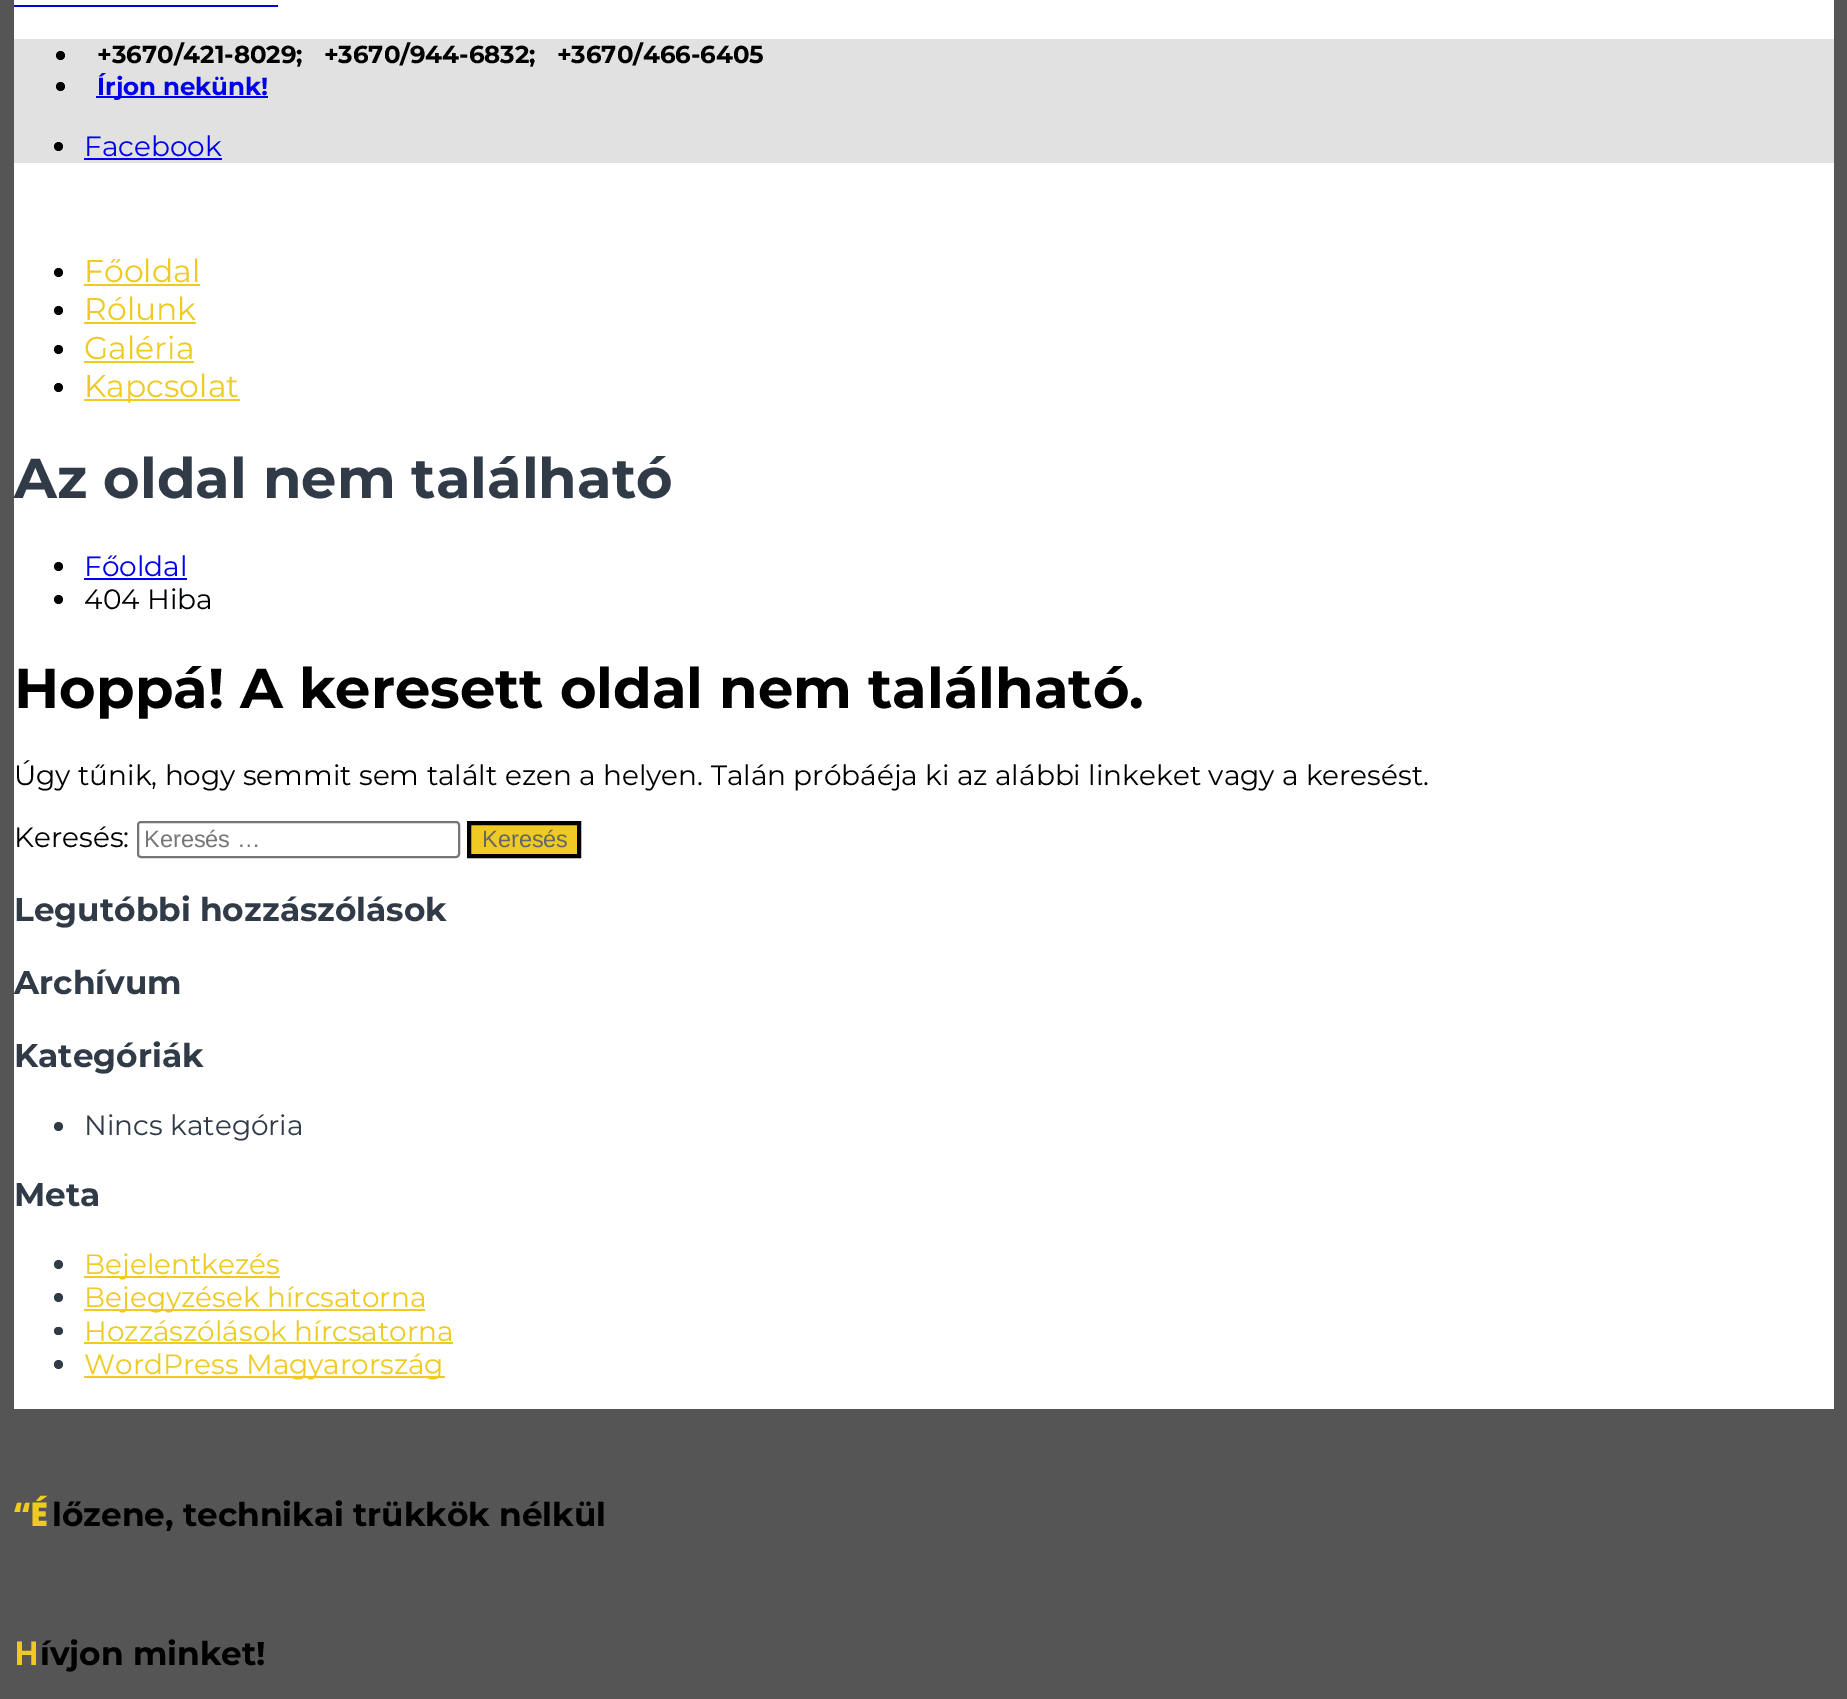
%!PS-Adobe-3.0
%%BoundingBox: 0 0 1847 1699
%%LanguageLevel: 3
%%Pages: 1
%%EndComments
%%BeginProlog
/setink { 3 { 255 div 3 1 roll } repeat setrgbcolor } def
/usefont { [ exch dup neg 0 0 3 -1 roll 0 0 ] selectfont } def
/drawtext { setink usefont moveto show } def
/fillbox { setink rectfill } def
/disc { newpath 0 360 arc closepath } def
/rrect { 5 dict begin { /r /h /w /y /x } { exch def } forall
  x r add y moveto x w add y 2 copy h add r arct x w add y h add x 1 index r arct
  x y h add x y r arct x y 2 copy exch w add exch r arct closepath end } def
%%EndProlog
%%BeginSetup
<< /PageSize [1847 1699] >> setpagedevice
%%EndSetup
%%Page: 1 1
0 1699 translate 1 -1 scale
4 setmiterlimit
0 0 1847 1699 85 85 85 fillbox
14 0 1820 1409 255 255 255 fillbox
14 5 264 2 0 0 238 fillbox
14 39 1820 124 225 225 225 fillbox
0 0 0 setink
60.5 55.5 4.5 disc fill
(+3670/421-8029;   +3670/944-6832;   +3670/466-6405) 97 63 /Montserrat-Bold 24.5 0 0 0 drawtext
60.5 86.5 4.5 disc fill
96 96 172 2 0 0 238 fillbox
(Írjon nekünk!) 97 95 /Montserrat-Bold 24.5 0 0 238 drawtext
0 0 0 setink
58.5 146.5 4.5 disc fill
(Facebook) 84 156 /Montserrat-Regular 28 0 0 238 drawtext
84 158 138 2 0 0 238 fillbox
0 0 0 setink
58.5 272.5 4.5 disc fill
(Főoldal) 84 282 /Montserrat-Regular 31.5 239 202 35 drawtext
84 284 116 2 239 202 35 fillbox
0 0 0 setink
58.5 310.5 4.5 disc fill
(Rólunk) 84 320 /Montserrat-Regular 31.5 239 202 35 drawtext
84 322 112 2 239 202 35 fillbox
0 0 0 setink
58.5 349.5 4.5 disc fill
(Galéria) 84 359 /Montserrat-Regular 31.5 239 202 35 drawtext
84 361 110 2 239 202 35 fillbox
0 0 0 setink
58.5 387.5 4.5 disc fill
84 399 156 2 239 202 35 fillbox
(Kapcsolat) 84 397 /Montserrat-Regular 31.5 239 202 35 drawtext
(Az oldal nem található) 14 498 /Montserrat-Bold 56 49 59 72 drawtext
0 0 0 setink
58.5 566.5 4.5 disc fill
(Főoldal) 84 576 /Montserrat-Regular 28 0 0 238 drawtext
84 578 103 2 0 0 238 fillbox
0 0 0 setink
58.5 599.5 4.5 disc fill
(404 Hiba) 84 609 /Montserrat-Regular 28 0 0 0 drawtext
(Hoppá! A keresett oldal nem található.) 14 708 /Montserrat-Bold 56 0 0 0 drawtext
(Úgy tűnik, hogy semmit sem talált ezen a helyen. Talán próbáéja ki az alábbi linkeket vagy a keresést.) 14 785 /Montserrat-Regular 28 0 0 0 drawtext
(Keresés:) 14 847 /Montserrat-Regular 28 0 0 0 drawtext
118 118 118 setink
2 setlinewidth
138 822 321 35 3 rrect stroke
(Keresés …) 144 847 /LiberationSans-Regular 23.5 117 117 117 drawtext
239 202 35 setink
469 823 moveto 579 823 lineto 579 856 lineto 469 856 lineto closepath gsave fill grestore
0 0 0 setink
4 setlinewidth
stroke
(Keresés) 482 847 /LiberationSans-Regular 23.5 102 102 102 drawtext
(Legutóbbi hozzászólások) 14 921 /Montserrat-Bold 32.75 49 59 72 drawtext
(Archívum) 14 994 /Montserrat-Bold 32.75 49 59 72 drawtext
(Kategóriák) 14 1067 /Montserrat-Bold 32.75 49 59 72 drawtext
58.5 1126.5 4.5 disc fill
(Nincs kategória) 84 1135 /Montserrat-Regular 28 49 59 72 drawtext
(Meta) 14 1206 /Montserrat-Bold 32.75 49 59 72 drawtext
58.5 1264.5 4.5 disc fill
84 1276 196 2 239 202 35 fillbox
(Bejelentkezés) 84 1274 /Montserrat-Regular 28 239 202 35 drawtext
49 59 72 setink
58.5 1297.5 4.5 disc fill
84 1309 341 2 239 202 35 fillbox
(Bejegyzések hírcsatorna) 84 1307 /Montserrat-Regular 28 239 202 35 drawtext
49 59 72 setink
54 1327 9 8 4 rrect fill
(Hozzászólások hírcsatorna) 84 1341 /Montserrat-Regular 28 239 202 35 drawtext
84 1342 369 2 239 202 35 fillbox
49 59 72 setink
58.5 1364.5 4.5 disc fill
84 1376 361 2 239 202 35 fillbox
(WordPress Magyarország) 84 1374 /Montserrat-Regular 28 239 202 35 drawtext
(“É) 14 1526 /NotoSans-Black 32.75 239 202 35 drawtext
(lőzene, technikai trükkök nélkül) 52 1526 /Montserrat-Bold 32.75 0 0 0 drawtext
(H) 14 1665 /NotoSans-Bold 32.75 239 202 35 drawtext
(ívjon minket!) 40 1665 /Montserrat-Bold 32.75 0 0 0 drawtext
showpage
%%EOF
